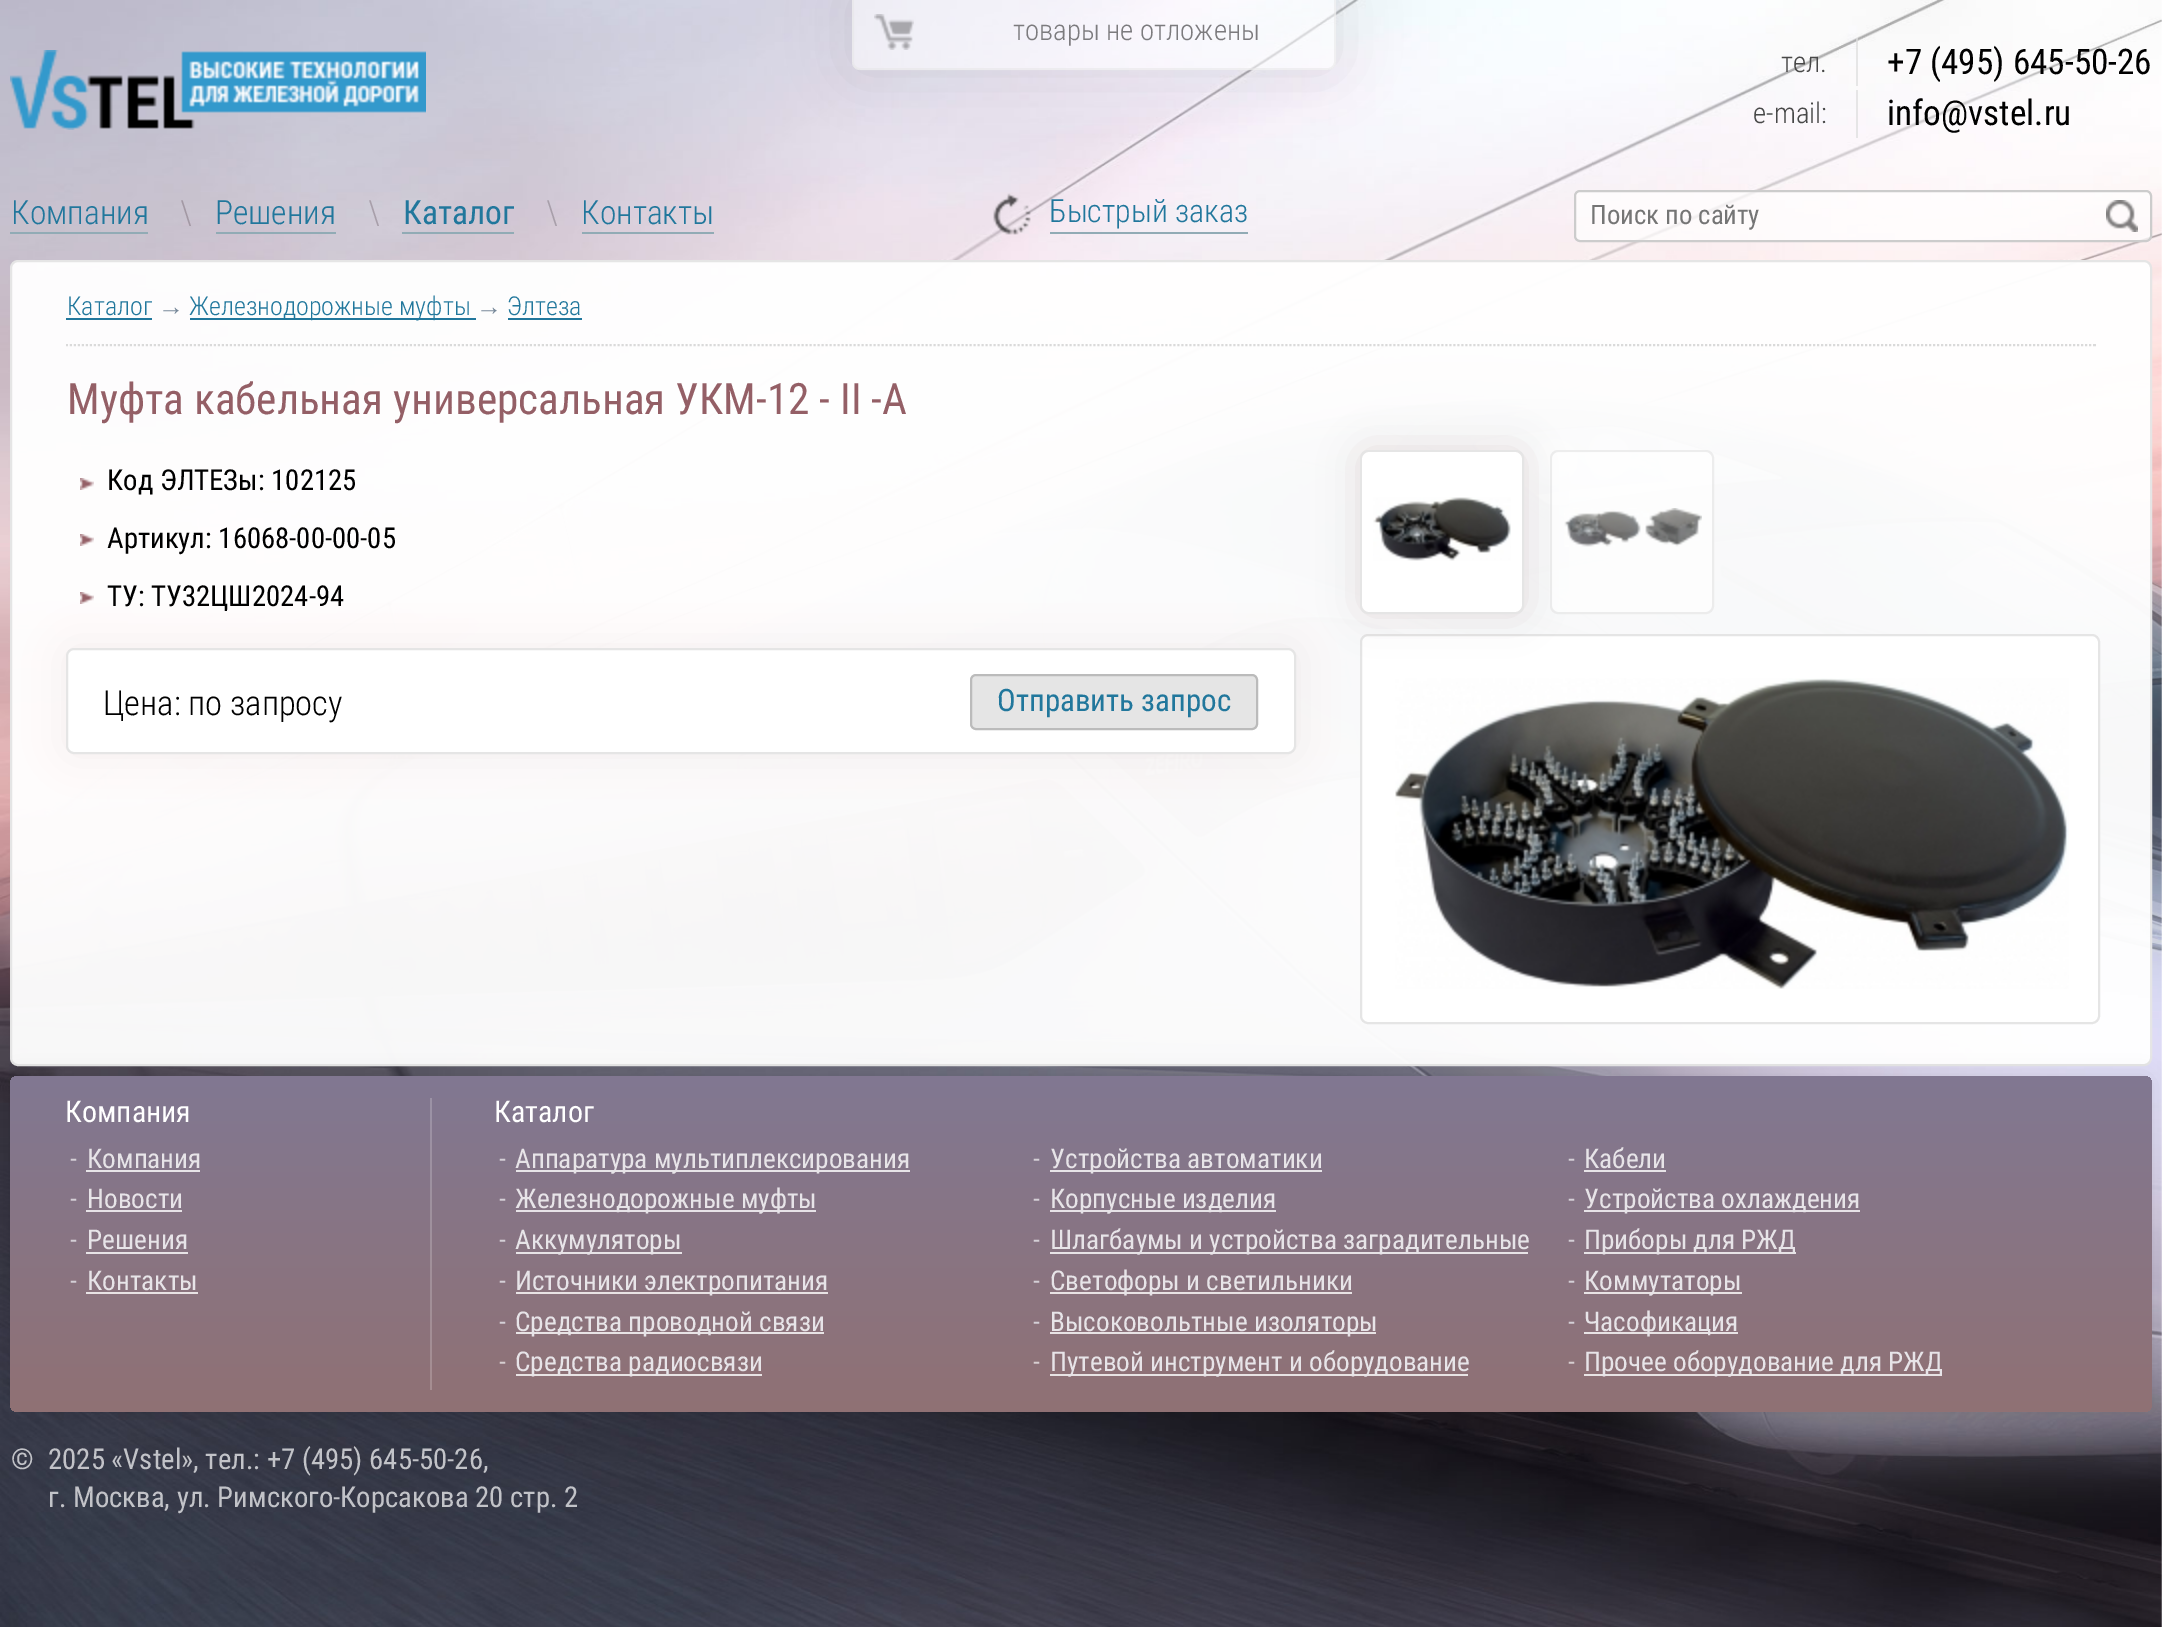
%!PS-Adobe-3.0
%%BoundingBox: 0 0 2162 1627
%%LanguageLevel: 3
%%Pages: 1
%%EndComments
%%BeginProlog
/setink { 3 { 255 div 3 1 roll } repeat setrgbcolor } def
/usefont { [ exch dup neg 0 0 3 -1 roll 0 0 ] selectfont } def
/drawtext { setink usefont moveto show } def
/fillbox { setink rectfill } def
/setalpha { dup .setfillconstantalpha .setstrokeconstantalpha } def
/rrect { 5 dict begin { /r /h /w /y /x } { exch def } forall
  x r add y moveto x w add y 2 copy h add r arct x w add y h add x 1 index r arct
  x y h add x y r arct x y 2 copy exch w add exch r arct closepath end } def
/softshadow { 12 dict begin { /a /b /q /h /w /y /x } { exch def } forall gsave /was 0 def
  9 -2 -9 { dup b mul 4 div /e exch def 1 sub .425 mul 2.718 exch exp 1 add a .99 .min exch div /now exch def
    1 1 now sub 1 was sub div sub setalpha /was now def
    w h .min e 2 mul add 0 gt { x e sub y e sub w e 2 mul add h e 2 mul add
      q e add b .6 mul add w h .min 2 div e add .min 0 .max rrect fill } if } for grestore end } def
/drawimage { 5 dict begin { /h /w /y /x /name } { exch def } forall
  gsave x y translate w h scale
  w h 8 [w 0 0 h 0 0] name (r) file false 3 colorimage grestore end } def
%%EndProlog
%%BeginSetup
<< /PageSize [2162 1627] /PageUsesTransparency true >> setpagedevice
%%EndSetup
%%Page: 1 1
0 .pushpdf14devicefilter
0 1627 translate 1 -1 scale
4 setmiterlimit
0 0 2162 1627 255 255 255 fillbox
(assets/img1.rgb) 0 0 2162 1627 drawimage
gsave
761 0 moveto 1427 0 lineto 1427 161 lineto 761 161 lineto closepath 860 -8 moveto 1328 -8 lineto 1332.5 -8 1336 -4.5 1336 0 curveto 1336 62 lineto 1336 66.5 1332.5 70 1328 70 curveto 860 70 lineto 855.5 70 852 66.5 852 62 curveto 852 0 lineto 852 -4.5 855.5 -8 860 -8 curveto closepath eoclip newpath
0 0 0 setink
852 -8 484 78 8 30 0.1 softshadow
grestore
0.5 setalpha
852 -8 484 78 8 rrect fill
229 229 229 setink
2 setlinewidth
853 -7 482 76 7 rrect stroke
1 setalpha
(assets/img2.rgb) 874 14 40 36 drawimage
(товары не отложены) 1013 40 /RobotoCondensed-Light 28.75 124 123 126 drawtext
(assets/img3.rgb) 10 50 416 80 drawimage
0.7 setalpha
1856 38 2 48 221 221 221 fillbox
1 setalpha
(тел.) 1781 72 /RobotoCondensed-Light 28.75 72 72 72 drawtext
(+7 \(495\) 645-50-26) 1887 74 /RobotoCondensed-Regular 35.25 0 0 0 drawtext
0.7 setalpha
1856 90 2 48 221 221 221 fillbox
1 setalpha
(e-mail:) 1753 123 /RobotoCondensed-Light 28.75 72 72 72 drawtext
(info@vstel.ru) 1887 125 /RobotoCondensed-Regular 35.25 0 0 0 drawtext
0.7 setalpha
255 255 255 setink
1575 191 576 50 5 rrect fill
1 setalpha
204 204 204 setink
1575 191 576 50 5 rrect stroke
(Поиск по сайту) 1590 224 /RobotoCondensed-Regular 26.75 117 117 117 drawtext
(assets/img4.rgb) 2106 200 32 32 drawimage
(Компания) 11 224 /RobotoCondensed-Light 33.5 33 119 156 drawtext
10 232 138 2 145 171 181 fillbox
(\\) 180 224 /RobotoCondensed-Light 33.5 163 153 164 drawtext
(Решения) 215 224 /RobotoCondensed-Light 33.5 33 119 156 drawtext
216 232 120 2 145 171 181 fillbox
(\\) 368 224 /RobotoCondensed-Light 33.5 168 159 170 drawtext
(Каталог) 403 224 /RobotoCondensed-Regular 33.5 33 119 156 drawtext
402 232 112 2 145 171 181 fillbox
(\\) 546 224 /RobotoCondensed-Light 33.5 168 159 170 drawtext
(Контакты) 581 224 /RobotoCondensed-Light 33.5 33 119 156 drawtext
582 232 132 2 145 171 181 fillbox
1050 232 198 2 145 171 181 fillbox
(assets/img5.rgb) 993 193 38 42 drawimage
(Быстрый заказ) 1049 222 /RobotoCondensed-Light 32 33 119 156 drawtext
0.96 setalpha
255 255 255 setink
11 261 2140 804 7 rrect fill
1 setalpha
229 229 229 setink
11 261 2140 804 7 rrect stroke
218 218 218 setink
[2 2] 0 setdash
66 345 moveto 2096 345 lineto stroke
(Каталог) 67 315 /RobotoCondensed-Light 26 33 119 156 drawtext
66 318 86 2 33 119 156 fillbox
(→) 158 315 /LiberationSans-Regular 26 119 136 153 drawtext
190 318 286 2 33 119 156 fillbox
(Железнодорожные муфты) 189 315 /RobotoCondensed-Light 26 33 119 156 drawtext
(→) 476 315 /LiberationSans-Regular 26 119 136 153 drawtext
(Элтеза) 507 315 /RobotoCondensed-Light 26 33 119 156 drawtext
508 318 74 2 33 119 156 fillbox
(Муфта кабельная универсальная УКМ-12 - II -A) 67 414 /RobotoCondensed-Regular 43.25 148 95 102 drawtext
255 255 255 setink
1361 635 738 388 7 rrect gsave fill grestore
229 229 229 setink
[] 0 setdash
stroke
149 93 102 setink
1360 450 164 164 8 20 0.2 softshadow
229 229 229 setink
1361 451 162 162 7 rrect stroke
255 255 255 setink
1362 452 160 160 8 rrect fill
(assets/img6.rgb) 1373 497 138 64 drawimage
0.65 setalpha
229 229 229 setink
1551 451 162 162 7 rrect stroke
255 255 255 setink
1552 452 160 160 8 rrect fill
1 setalpha
(assets/img7.rgb) 1564 508 138 39 drawimage
(assets/img8.rgb) 1395 678 674 311 drawimage
(assets/img9.rgb) 80 478 14 12 drawimage
(Код ЭЛТЕЗы: 102125) 107 490 /RobotoCondensed-Regular 28.75 0 0 0 drawtext
(assets/img10.rgb) 80 534 14 12 drawimage
(Артикул: 16068-00-00-05) 107 548 /RobotoCondensed-Regular 28.75 0 0 0 drawtext
149 93 102 setink
66 648 1230 106 8 20 0.1 softshadow
(assets/img11.rgb) 80 592 14 12 drawimage
(ТУ: ТУ32ЦШ2024-94) 107 606 /RobotoCondensed-Regular 28.75 0 0 0 drawtext
255 255 255 setink
67 649 1228 104 7 rrect gsave fill grestore
229 229 229 setink
stroke
(Цена: по запросу) 103 715 /RobotoCondensed-Light 34.5 0 0 0 drawtext
229 229 229 setink
971 675 286 54 5 rrect gsave fill grestore
187 187 187 setink
stroke
(Отправить запрос) 997 711 /RobotoCondensed-Regular 31 33 119 156 drawtext
0 0 0 setink
10 1076 2142 336 8 10 0.07 softshadow
gsave 10 1076 2142 336 8 rrect clip newpath
<< /ShadingType 2 /ColorSpace /DeviceRGB /Coords [1081 1076 1081 1412] /Extend [true true] /Function << /FunctionType 2 /Domain [0 1] /C0 [0.506 0.471 0.573] /C1 [0.565 0.443 0.455] /N 1 >> >> shfill grestore
(Компания) 65 1122 /RobotoCondensed-Regular 30 255 255 255 drawtext
(-) 70 1168 /RobotoCondensed-Regular 27.25 212 207 214 drawtext
(Компания) 87 1168 /RobotoCondensed-Regular 27.25 231 228 232 drawtext
86 1170 114 2 231 228 232 fillbox
(-) 70 1208 /RobotoCondensed-Regular 27.25 212 207 214 drawtext
(Новости) 87 1208 /RobotoCondensed-Regular 27.25 231 228 232 drawtext
86 1210 96 2 231 227 231 fillbox
(-) 70 1249 /RobotoCondensed-Regular 27.25 212 207 214 drawtext
(Решения) 87 1249 /RobotoCondensed-Regular 27.25 231 228 232 drawtext
86 1252 102 2 231 227 230 fillbox
(-) 70 1290 /RobotoCondensed-Regular 27.25 212 207 214 drawtext
(Контакты) 87 1290 /RobotoCondensed-Regular 27.25 231 228 232 drawtext
86 1292 112 2 232 227 229 fillbox
0.2 setalpha
430 1098 2 292 255 255 255 fillbox
1 setalpha
(Каталог) 494 1122 /RobotoCondensed-Regular 30 255 255 255 drawtext
(-) 499 1168 /RobotoCondensed-Regular 27.25 212 207 214 drawtext
516 1170 394 2 231 228 232 fillbox
(Аппаратура мультиплексирования) 515 1168 /RobotoCondensed-Regular 27.25 231 228 232 drawtext
(-) 499 1208 /RobotoCondensed-Regular 27.25 212 207 214 drawtext
516 1210 300 2 231 227 231 fillbox
(Железнодорожные муфты) 515 1208 /RobotoCondensed-Regular 27.25 231 228 232 drawtext
(-) 499 1249 /RobotoCondensed-Regular 27.25 212 207 214 drawtext
516 1252 166 2 231 227 230 fillbox
(Аккумуляторы) 515 1249 /RobotoCondensed-Regular 27.25 231 228 232 drawtext
(-) 499 1290 /RobotoCondensed-Regular 27.25 212 207 214 drawtext
516 1292 312 2 232 227 229 fillbox
(Источники электропитания) 515 1290 /RobotoCondensed-Regular 27.25 231 228 232 drawtext
(-) 499 1331 /RobotoCondensed-Regular 27.25 212 207 214 drawtext
516 1332 308 2 232 227 229 fillbox
(Средства проводной связи) 515 1331 /RobotoCondensed-Regular 27.25 231 228 232 drawtext
(-) 499 1371 /RobotoCondensed-Regular 27.25 215 206 208 drawtext
516 1374 246 2 232 227 228 fillbox
(Средства радиосвязи) 515 1371 /RobotoCondensed-Regular 27.25 231 228 232 drawtext
(-) 1033 1168 /RobotoCondensed-Regular 27.25 212 207 214 drawtext
1050 1170 272 2 231 228 232 fillbox
(Устройства автоматики) 1050 1168 /RobotoCondensed-Regular 27.25 231 228 232 drawtext
(-) 1033 1208 /RobotoCondensed-Regular 27.25 212 207 214 drawtext
1050 1210 226 2 231 227 231 fillbox
(Корпусные изделия) 1050 1208 /RobotoCondensed-Regular 27.25 231 228 232 drawtext
(-) 1033 1249 /RobotoCondensed-Regular 27.25 212 207 214 drawtext
1050 1252 478 2 231 227 230 fillbox
(Шлагбаумы и устройства заградительные) 1050 1249 /RobotoCondensed-Regular 27.25 231 228 232 drawtext
(-) 1033 1290 /RobotoCondensed-Regular 27.25 212 207 214 drawtext
1050 1292 302 2 232 227 229 fillbox
(Светофоры и светильники) 1050 1290 /RobotoCondensed-Regular 27.25 231 228 232 drawtext
(-) 1033 1331 /RobotoCondensed-Regular 27.25 212 207 214 drawtext
1050 1332 326 2 232 227 229 fillbox
(Высоковольтные изоляторы) 1050 1331 /RobotoCondensed-Regular 27.25 231 228 232 drawtext
(-) 1033 1371 /RobotoCondensed-Regular 27.25 215 206 208 drawtext
1050 1374 418 2 232 227 228 fillbox
(Путевой инструмент и оборудование) 1050 1371 /RobotoCondensed-Regular 27.25 231 228 232 drawtext
(-) 1568 1168 /RobotoCondensed-Regular 27.25 212 207 214 drawtext
(Кабели) 1584 1168 /RobotoCondensed-Regular 27.25 231 228 232 drawtext
1584 1170 82 2 231 228 232 fillbox
(-) 1568 1208 /RobotoCondensed-Regular 27.25 212 207 214 drawtext
1584 1210 276 2 231 227 231 fillbox
(Устройства охлаждения) 1584 1208 /RobotoCondensed-Regular 27.25 231 228 232 drawtext
(-) 1568 1249 /RobotoCondensed-Regular 27.25 212 207 214 drawtext
1584 1252 212 2 231 227 230 fillbox
(Приборы для РЖД) 1584 1249 /RobotoCondensed-Regular 27.25 231 228 232 drawtext
(-) 1568 1290 /RobotoCondensed-Regular 27.25 212 207 214 drawtext
1584 1292 158 2 232 227 229 fillbox
(Коммутаторы) 1584 1290 /RobotoCondensed-Regular 27.25 231 228 232 drawtext
(-) 1568 1331 /RobotoCondensed-Regular 27.25 212 207 214 drawtext
1584 1332 154 2 232 227 229 fillbox
(Часофикация) 1584 1331 /RobotoCondensed-Regular 27.25 231 228 232 drawtext
(-) 1568 1371 /RobotoCondensed-Regular 27.25 215 206 208 drawtext
1584 1374 358 2 232 227 228 fillbox
(Прочее оборудование для РЖД) 1584 1371 /RobotoCondensed-Regular 27.25 231 228 232 drawtext
(©) 11 1469 /RobotoCondensed-Regular 28.75 194 195 200 drawtext
(2025 «Vstel», тел.: +7 \(495\) 645-50-26,) 48 1469 /RobotoCondensed-Regular 28.75 194 195 200 drawtext
(г. Москва, ул. Римского-Корсакова 20 стр. 2) 48 1507 /RobotoCondensed-Regular 28.75 194 195 200 drawtext
.poppdf14devicefilter showpage
%%EOF
